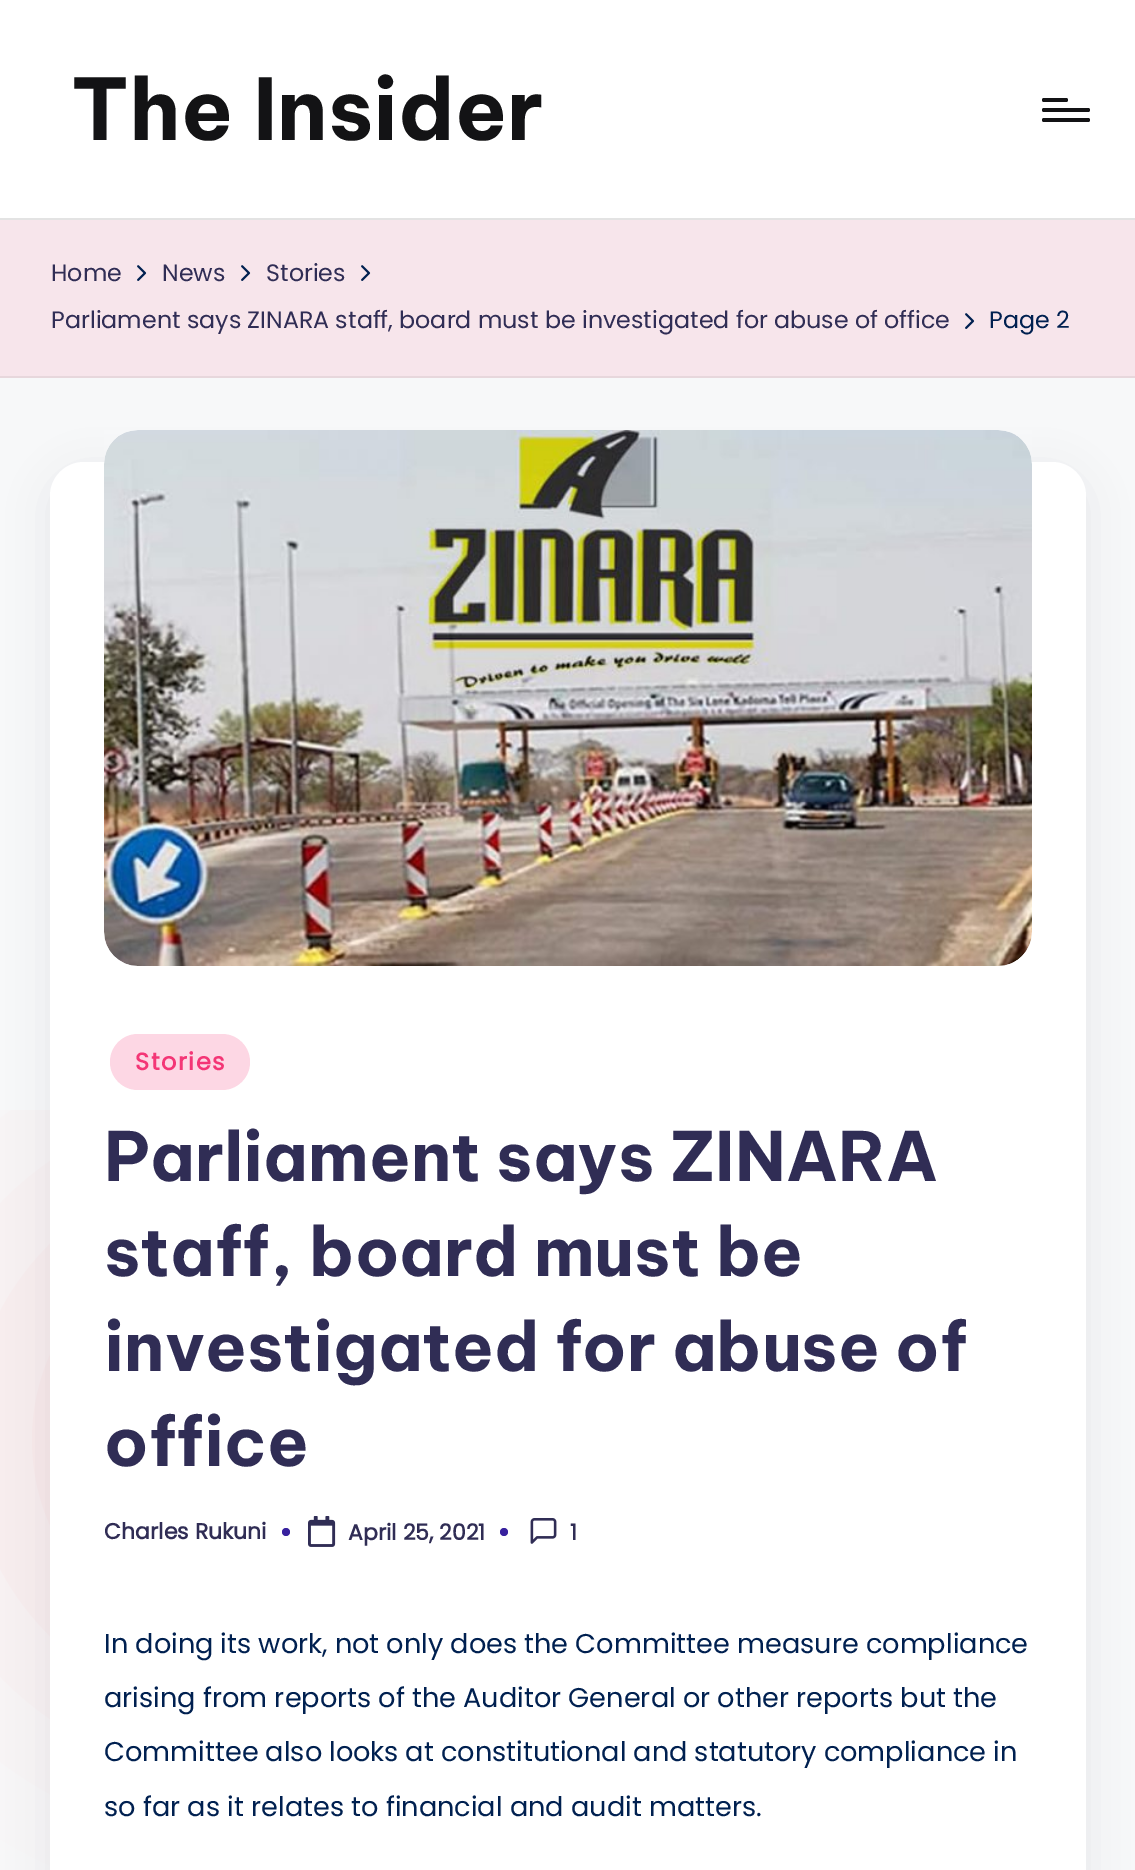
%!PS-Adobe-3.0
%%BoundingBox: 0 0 1135 1870
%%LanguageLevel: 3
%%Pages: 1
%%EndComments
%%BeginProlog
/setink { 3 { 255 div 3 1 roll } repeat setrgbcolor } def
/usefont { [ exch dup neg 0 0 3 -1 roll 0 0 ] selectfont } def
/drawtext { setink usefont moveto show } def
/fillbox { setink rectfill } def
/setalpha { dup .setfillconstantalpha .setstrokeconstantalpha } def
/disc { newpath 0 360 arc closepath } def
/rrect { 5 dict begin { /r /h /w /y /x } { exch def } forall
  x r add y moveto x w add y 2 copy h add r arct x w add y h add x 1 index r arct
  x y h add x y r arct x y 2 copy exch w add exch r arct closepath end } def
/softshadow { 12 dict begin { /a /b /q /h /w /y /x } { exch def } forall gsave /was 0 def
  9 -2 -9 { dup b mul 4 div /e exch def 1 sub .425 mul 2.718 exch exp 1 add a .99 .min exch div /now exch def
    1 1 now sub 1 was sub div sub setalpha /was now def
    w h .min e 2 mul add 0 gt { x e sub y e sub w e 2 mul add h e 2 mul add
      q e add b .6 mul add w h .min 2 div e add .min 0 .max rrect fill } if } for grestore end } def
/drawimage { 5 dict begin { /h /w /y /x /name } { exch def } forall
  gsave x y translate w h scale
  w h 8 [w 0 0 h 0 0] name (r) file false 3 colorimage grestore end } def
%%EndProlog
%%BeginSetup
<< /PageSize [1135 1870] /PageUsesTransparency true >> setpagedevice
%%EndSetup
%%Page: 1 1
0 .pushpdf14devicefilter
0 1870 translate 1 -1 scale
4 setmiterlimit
0 0 1135 1870 247 248 249 fillbox
0 0 1135 218 255 255 255 fillbox
0 218 1135 2 227 227 227 fillbox
(The Insider) 71 140 /BeVietnamPro-Bold 84.75 19 19 21 drawtext
1042 108 48 4 2 rrect fill
1042 98 26 4 2 rrect fill
1042 118 48 4 2 rrect fill
0 220 1135 156 247 229 235 fillbox
0 376 1135 2 231 215 220 fillbox
(Home) 51 281 /Poppins-Regular 23.75 48 45 85 drawtext
(assets/img1.rgb) 137 265 10 16 drawimage
(News) 162 281 /Poppins-Regular 23.75 48 45 85 drawtext
(assets/img1.rgb) 241 265 10 16 drawimage
(Stories) 266 281 /Poppins-Regular 23.75 48 45 85 drawtext
(assets/img1.rgb) 361 265 10 16 drawimage
(Parliament says ZINARA staff, board must be investigated for abuse of office) 51 328 /Poppins-Regular 23.75 48 45 85 drawtext
(assets/img1.rgb) 965 313 10 16 drawimage
(Page 2) 989 328 /Poppins-Regular 23.75 0 32 80 drawtext
gsave
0 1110 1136 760 rectclip
247 227 229 setink
0 1196 488 488 244 128 1 softshadow
grestore
69 67 96 setink
50 472 1036 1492 34 20 0.1 softshadow
255 255 255 setink
50 462 1036 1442 34 rrect fill
(assets/img2.rgb) 104 430 928 536 drawimage
253 215 228 setink
110 1034 140 56 28 rrect fill
/Poppins-Bold 24 usefont
244 54 118 setink
135 1070 moveto 1.5 0 (Stories) ashow
(Parliament says ZINARA) 104 1181 /BeVietnamPro-Bold 67.8 48 45 85 drawtext
(staff, board must be) 104 1276 /BeVietnamPro-Bold 67.8 48 45 85 drawtext
(investigated for abuse of) 104 1371 /BeVietnamPro-Bold 67.8 48 45 85 drawtext
(office) 104 1466 /BeVietnamPro-Bold 67.8 48 45 85 drawtext
(Charles Rukuni) 104 1539 /Poppins-Bold 22 48 45 85 drawtext
56 33 158 setink
286 1532 4 disc fill
(assets/img3.rgb) 308 1516 28 31 drawimage
(April 25, 2021) 348 1540 /Poppins-Bold 22 48 45 85 drawtext
56 33 158 setink
504 1532 4 disc fill
(assets/img4.rgb) 530 1518 27 26 drawimage
(1) 570 1540 /Poppins-Bold 22 48 45 85 drawtext
/Poppins-Regular 27.15 usefont
0 32 80 setink
104 1653 moveto -0.1 0 32 (In doing its work, not only does the Committee measure compliance) widthshow
104 1707 moveto -0.1 0 32 (arising from reports of the Auditor General or other reports but the) widthshow
104 1761 moveto -0.25 0 32 (Committee also looks at constitutional and statutory compliance in) widthshow
(so far as it relates to financial and audit matters.) 104 1816 /Poppins-Regular 27.15 0 32 80 drawtext
.poppdf14devicefilter showpage
%%EOF
